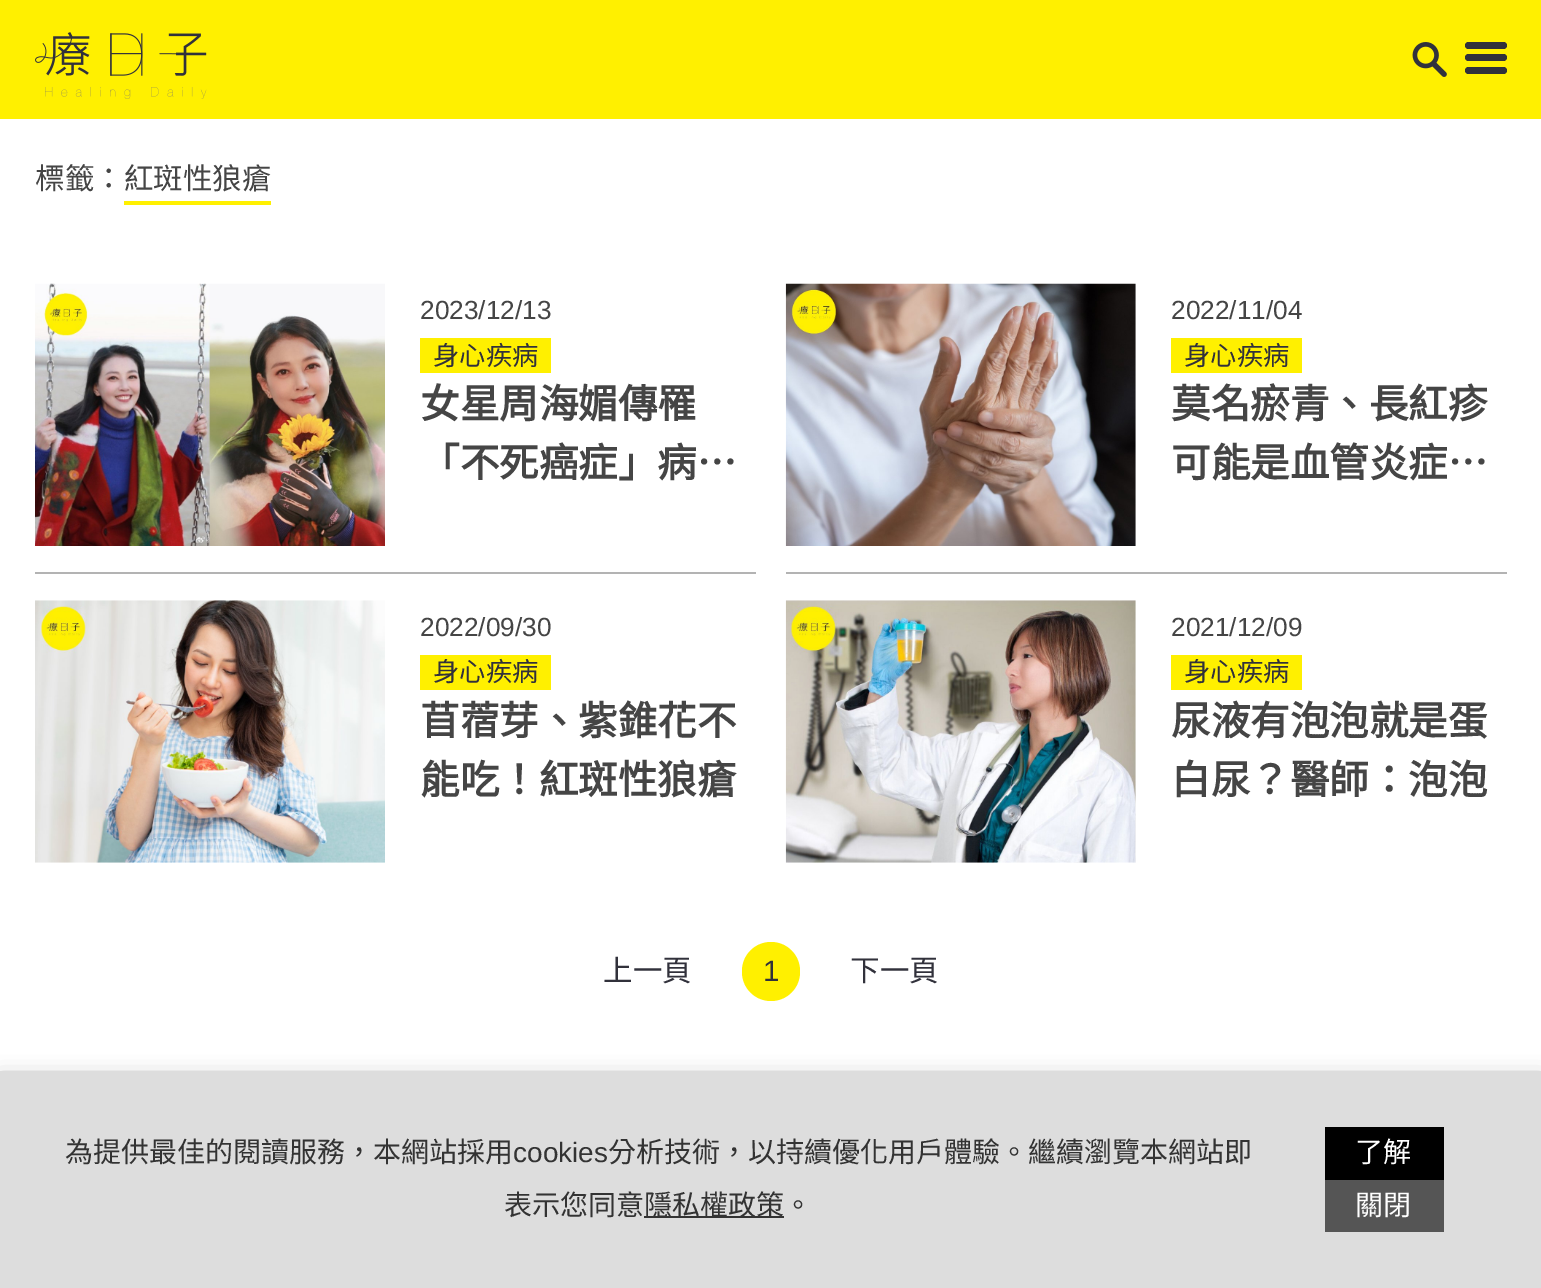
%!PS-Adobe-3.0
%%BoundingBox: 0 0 1541 1288
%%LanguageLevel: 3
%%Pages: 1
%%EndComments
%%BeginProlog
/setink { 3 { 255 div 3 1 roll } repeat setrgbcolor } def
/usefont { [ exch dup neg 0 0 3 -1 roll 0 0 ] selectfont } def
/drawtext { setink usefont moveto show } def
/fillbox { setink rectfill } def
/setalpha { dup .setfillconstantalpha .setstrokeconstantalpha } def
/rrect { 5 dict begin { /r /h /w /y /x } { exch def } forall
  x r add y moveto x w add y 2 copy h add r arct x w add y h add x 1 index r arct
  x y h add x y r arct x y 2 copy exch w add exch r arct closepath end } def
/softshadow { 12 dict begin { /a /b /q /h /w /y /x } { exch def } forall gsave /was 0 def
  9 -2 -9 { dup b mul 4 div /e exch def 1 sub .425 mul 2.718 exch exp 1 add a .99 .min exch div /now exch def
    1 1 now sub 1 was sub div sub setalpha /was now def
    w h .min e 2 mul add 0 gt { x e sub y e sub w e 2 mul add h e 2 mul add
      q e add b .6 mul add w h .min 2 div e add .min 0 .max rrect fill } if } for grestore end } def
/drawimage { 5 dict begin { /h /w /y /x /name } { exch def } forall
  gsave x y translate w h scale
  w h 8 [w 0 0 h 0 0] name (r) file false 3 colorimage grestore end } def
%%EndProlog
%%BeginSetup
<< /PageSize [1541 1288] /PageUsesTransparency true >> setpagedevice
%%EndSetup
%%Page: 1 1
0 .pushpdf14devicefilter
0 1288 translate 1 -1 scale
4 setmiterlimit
0 0 1541 1288 255 255 255 fillbox
0 0 1541 119 255 240 0 fillbox
(assets/img1.rgb) 35 32 172 67 drawimage
(assets/img2.rgb) 1412 42 35 35 drawimage
49 49 59 setink
1465 42 42 7 3.5 rrect fill
1465 54 42 7 3.5 rrect fill
1465 67 42 7 3.5 rrect fill
(標籤：紅斑性狼瘡) 35 189 /NotoSansCJKTC-Regular 29.5 69 69 69 drawtext
124 201 147 4 255 240 0 fillbox
35 572 721 2 179 179 179 fillbox
(assets/img3.rgb) 35 283 350 263 drawimage
(2023/12/13) 420 319 /LiberationSans-Regular 26.25 69 69 69 drawtext
420 338 131 35 255 240 0 fillbox
(身心疾病) 433 365 /NotoSansCJKTC-Regular 26.25 49 49 59 drawtext
(女星周海媚傳罹) 420 418 /NotoSansCJKTC-Bold 39.5 69 69 69 drawtext
(「不死癌症」病…) 420 477 /NotoSansCJKTC-Bold 39.5 69 69 69 drawtext
786 572 721 2 179 179 179 fillbox
(assets/img4.rgb) 785 283 351 263 drawimage
(2022/11/04) 1171 319 /LiberationSans-Regular 26.25 69 69 69 drawtext
1171 338 131 35 255 240 0 fillbox
(身心疾病) 1184 365 /NotoSansCJKTC-Regular 26.25 49 49 59 drawtext
(莫名瘀青、長紅疹) 1171 418 /NotoSansCJKTC-Bold 39.5 69 69 69 drawtext
(可能是血管炎症…) 1171 477 /NotoSansCJKTC-Bold 39.5 69 69 69 drawtext
(assets/img5.rgb) 35 600 350 263 drawimage
(2022/09/30) 420 636 /LiberationSans-Regular 26.25 69 69 69 drawtext
420 655 131 35 255 240 0 fillbox
(身心疾病) 433 681 /NotoSansCJKTC-Regular 26.25 49 49 59 drawtext
(苜蓿芽、紫錐花不) 420 735 /NotoSansCJKTC-Bold 39.5 69 69 69 drawtext
(能吃！紅斑性狼瘡) 420 794 /NotoSansCJKTC-Bold 39.5 69 69 69 drawtext
(assets/img6.rgb) 785 600 351 263 drawimage
(2021/12/09) 1171 636 /LiberationSans-Regular 26.25 69 69 69 drawtext
1171 655 131 35 255 240 0 fillbox
(身心疾病) 1184 681 /NotoSansCJKTC-Regular 26.25 49 49 59 drawtext
(尿液有泡泡就是蛋) 1171 735 /NotoSansCJKTC-Bold 39.5 69 69 69 drawtext
(白尿？醫師：泡泡) 1171 794 /NotoSansCJKTC-Bold 39.5 69 69 69 drawtext
(上一頁) 603 981 /NotoSansCJKTC-Regular 29.5 49 49 59 drawtext
255 240 0 setink
742 942 58 59 29 rrect fill
(1) 763 981 /LiberationSans-Regular 29.5 49 49 59 drawtext
(下一頁) 850 981 /NotoSansCJKTC-Regular 29.5 49 49 59 drawtext
0 0 0 setink
0 1078 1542 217 0 10.5 0.3 softshadow
0 1071 1541 217 221 221 221 fillbox
(為提供最佳的閱讀服務，本網站採用) 65 1162 /NotoSansCJKTC-Regular 28 51 51 51 drawtext
(cookies) 513 1162 /LiberationSans-Regular 28 51 51 51 drawtext
(分析技術，以持續優化用戶體驗。繼續瀏覽本網站即) 608 1162 /NotoSansCJKTC-Regular 28 51 51 51 drawtext
(表示您同意) 504 1215 /NotoSansCJKTC-Regular 28 51 51 51 drawtext
644 1216 140 2 51 51 51 fillbox
(隱私權政策。) 644 1215 /NotoSansCJKTC-Regular 28 51 51 51 drawtext
1325 1127 119 53 0 0 0 fillbox
(了解) 1355 1162 /NotoSansCJKTC-Regular 28 255 255 255 drawtext
1325 1180 119 52 85 85 85 fillbox
(關閉) 1355 1215 /NotoSansCJKTC-Regular 28 255 255 255 drawtext
.poppdf14devicefilter showpage
%%EOF
